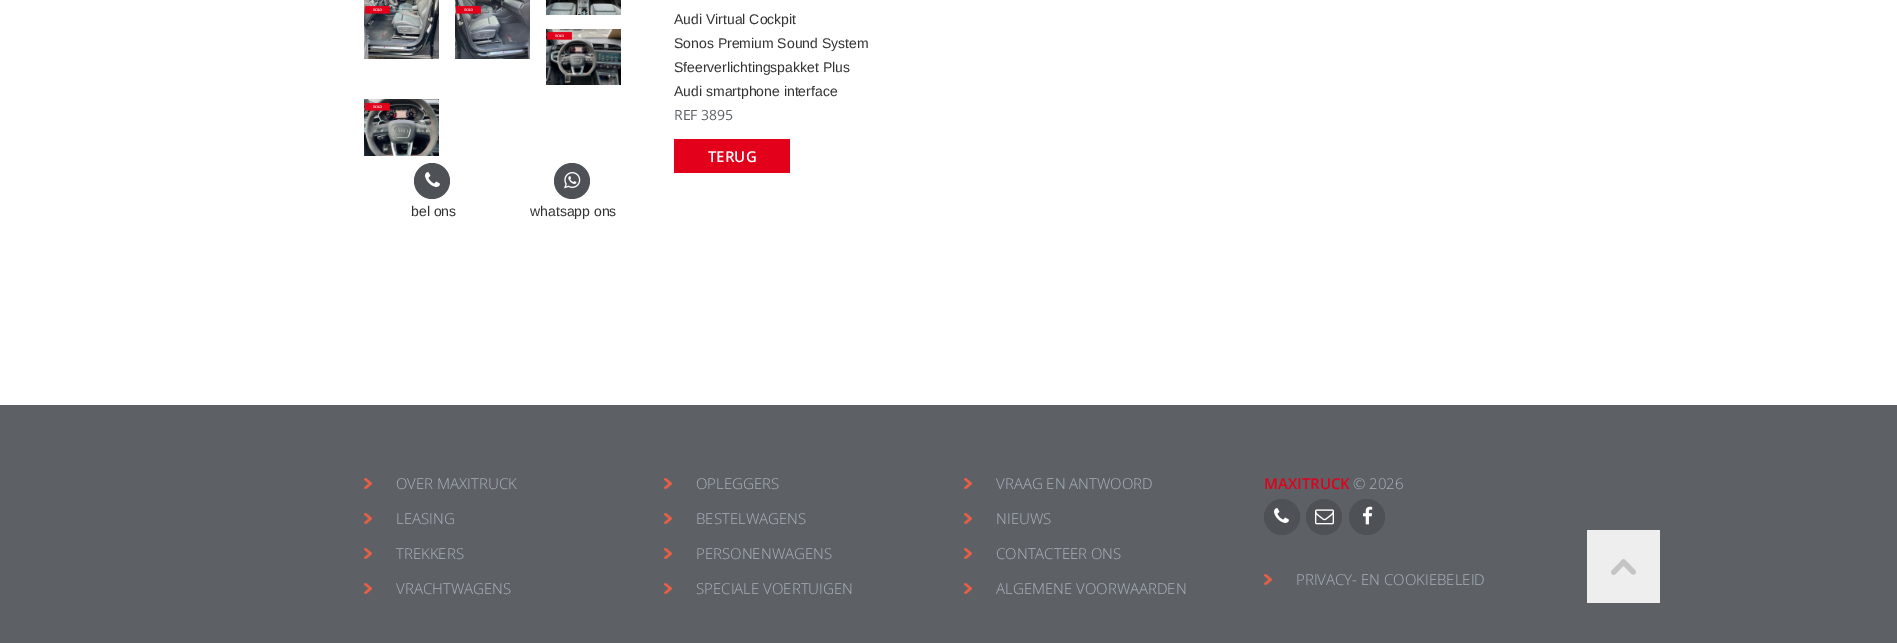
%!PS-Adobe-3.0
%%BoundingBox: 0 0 1897 643
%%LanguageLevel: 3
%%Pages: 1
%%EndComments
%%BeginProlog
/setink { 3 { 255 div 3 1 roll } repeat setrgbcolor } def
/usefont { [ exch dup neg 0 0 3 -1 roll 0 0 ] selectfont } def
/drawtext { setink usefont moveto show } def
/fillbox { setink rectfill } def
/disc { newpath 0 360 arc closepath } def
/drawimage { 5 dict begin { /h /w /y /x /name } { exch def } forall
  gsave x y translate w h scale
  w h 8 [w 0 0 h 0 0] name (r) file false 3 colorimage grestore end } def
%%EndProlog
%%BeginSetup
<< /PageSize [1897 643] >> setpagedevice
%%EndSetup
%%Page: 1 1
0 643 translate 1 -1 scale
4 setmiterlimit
0 0 1897 643 93 97 102 fillbox
0 0 1897 405 255 255 255 fillbox
(Audi Virtual Cockpit) 674 24 /LiberationSans-Regular 14 51 51 51 drawtext
(Sonos Premium Sound System) 674 48 /LiberationSans-Regular 14 51 51 51 drawtext
(Sfeerverlichtingspakket Plus) 674 72 /LiberationSans-Regular 14 51 51 51 drawtext
(Audi smartphone interface) 674 96 /LiberationSans-Regular 14 51 51 51 drawtext
(REF 3895) 674 120 /OpenSans-Regular 14 93 97 102 drawtext
674 139 116 34 226 0 26 fillbox
(TERUG) 708 162 /OpenSans-SemiBold 15 255 255 255 drawtext
(assets/img1.rgb) 364 0 75 59 drawimage
(assets/img2.rgb) 365 6 25 8 drawimage
(assets/img3.rgb) 455 0 75 59 drawimage
(assets/img4.rgb) 456 6 25 8 drawimage
(assets/img5.rgb) 546 0 75 15 drawimage
(assets/img6.rgb) 546 29 75 56 drawimage
(assets/img7.rgb) 547 32 25 8 drawimage
(assets/img8.rgb) 364 99 75 57 drawimage
(assets/img9.rgb) 365 103 25 8 drawimage
78 81 85 setink
432 181 18 disc fill
(assets/img10.rgb) 425 172 15 15 drawimage
572 181 18 disc fill
(assets/img11.rgb) 564 172 17 17 drawimage
(bel ons) 411 216 /LiberationSans-Regular 14 51 51 51 drawtext
(whatsapp ons) 530 216 /LiberationSans-Regular 14 51 51 51 drawtext
(assets/img12.rgb) 364 478 8 11 drawimage
(OVER MAXITRUCK) 396 489 /OpenSans-Light 15 171 179 188 drawtext
(assets/img12.rgb) 364 513 8 11 drawimage
(LEASING) 396 524 /OpenSans-Light 15 171 179 188 drawtext
(assets/img12.rgb) 364 548 8 11 drawimage
(TREKKERS) 396 559 /OpenSans-Light 15 171 179 188 drawtext
(assets/img12.rgb) 364 583 8 11 drawimage
(VRACHTWAGENS) 396 594 /OpenSans-Light 15 171 179 188 drawtext
(assets/img12.rgb) 664 478 8 11 drawimage
(OPLEGGERS) 696 489 /OpenSans-Light 15 171 179 188 drawtext
(assets/img12.rgb) 664 513 8 11 drawimage
(BESTELWAGENS) 696 524 /OpenSans-Light 15 171 179 188 drawtext
(assets/img12.rgb) 664 548 8 11 drawimage
(PERSONENWAGENS) 696 559 /OpenSans-Light 15 171 179 188 drawtext
(assets/img12.rgb) 664 583 8 11 drawimage
(SPECIALE VOERTUIGEN) 696 594 /OpenSans-Light 15 171 179 188 drawtext
(assets/img12.rgb) 964 478 8 11 drawimage
(VRAAG EN ANTWOORD) 996 489 /OpenSans-Light 15 171 179 188 drawtext
(assets/img12.rgb) 964 513 8 11 drawimage
(NIEUWS) 996 524 /OpenSans-Light 15 171 179 188 drawtext
(assets/img12.rgb) 964 548 8 11 drawimage
(CONTACTEER ONS) 996 559 /OpenSans-Light 15 171 179 188 drawtext
(assets/img12.rgb) 964 583 8 11 drawimage
(ALGEMENE VOORWAARDEN) 996 594 /OpenSans-Light 15 171 179 188 drawtext
(MAXITRUCK) 1264 489 /OpenSans-SemiBold 15 226 0 26 drawtext
(© 2026) 1353 489 /OpenSans-Light 15 171 179 188 drawtext
78 81 85 setink
1282 517 18 disc fill
(assets/img10.rgb) 1274 508 15 15 drawimage
1324 517 18 disc fill
(assets/img13.rgb) 1315 509 19 16 drawimage
1367 517 18 disc fill
(assets/img14.rgb) 1363 506 10 19 drawimage
(assets/img12.rgb) 1264 574 8 11 drawimage
(PRIVACY- EN COOKIEBELEID) 1296 585 /OpenSans-Light 15 171 179 188 drawtext
1587 530 73 73 238 238 238 fillbox
(assets/img15.rgb) 1611 559 25 16 drawimage
showpage
%%EOF
